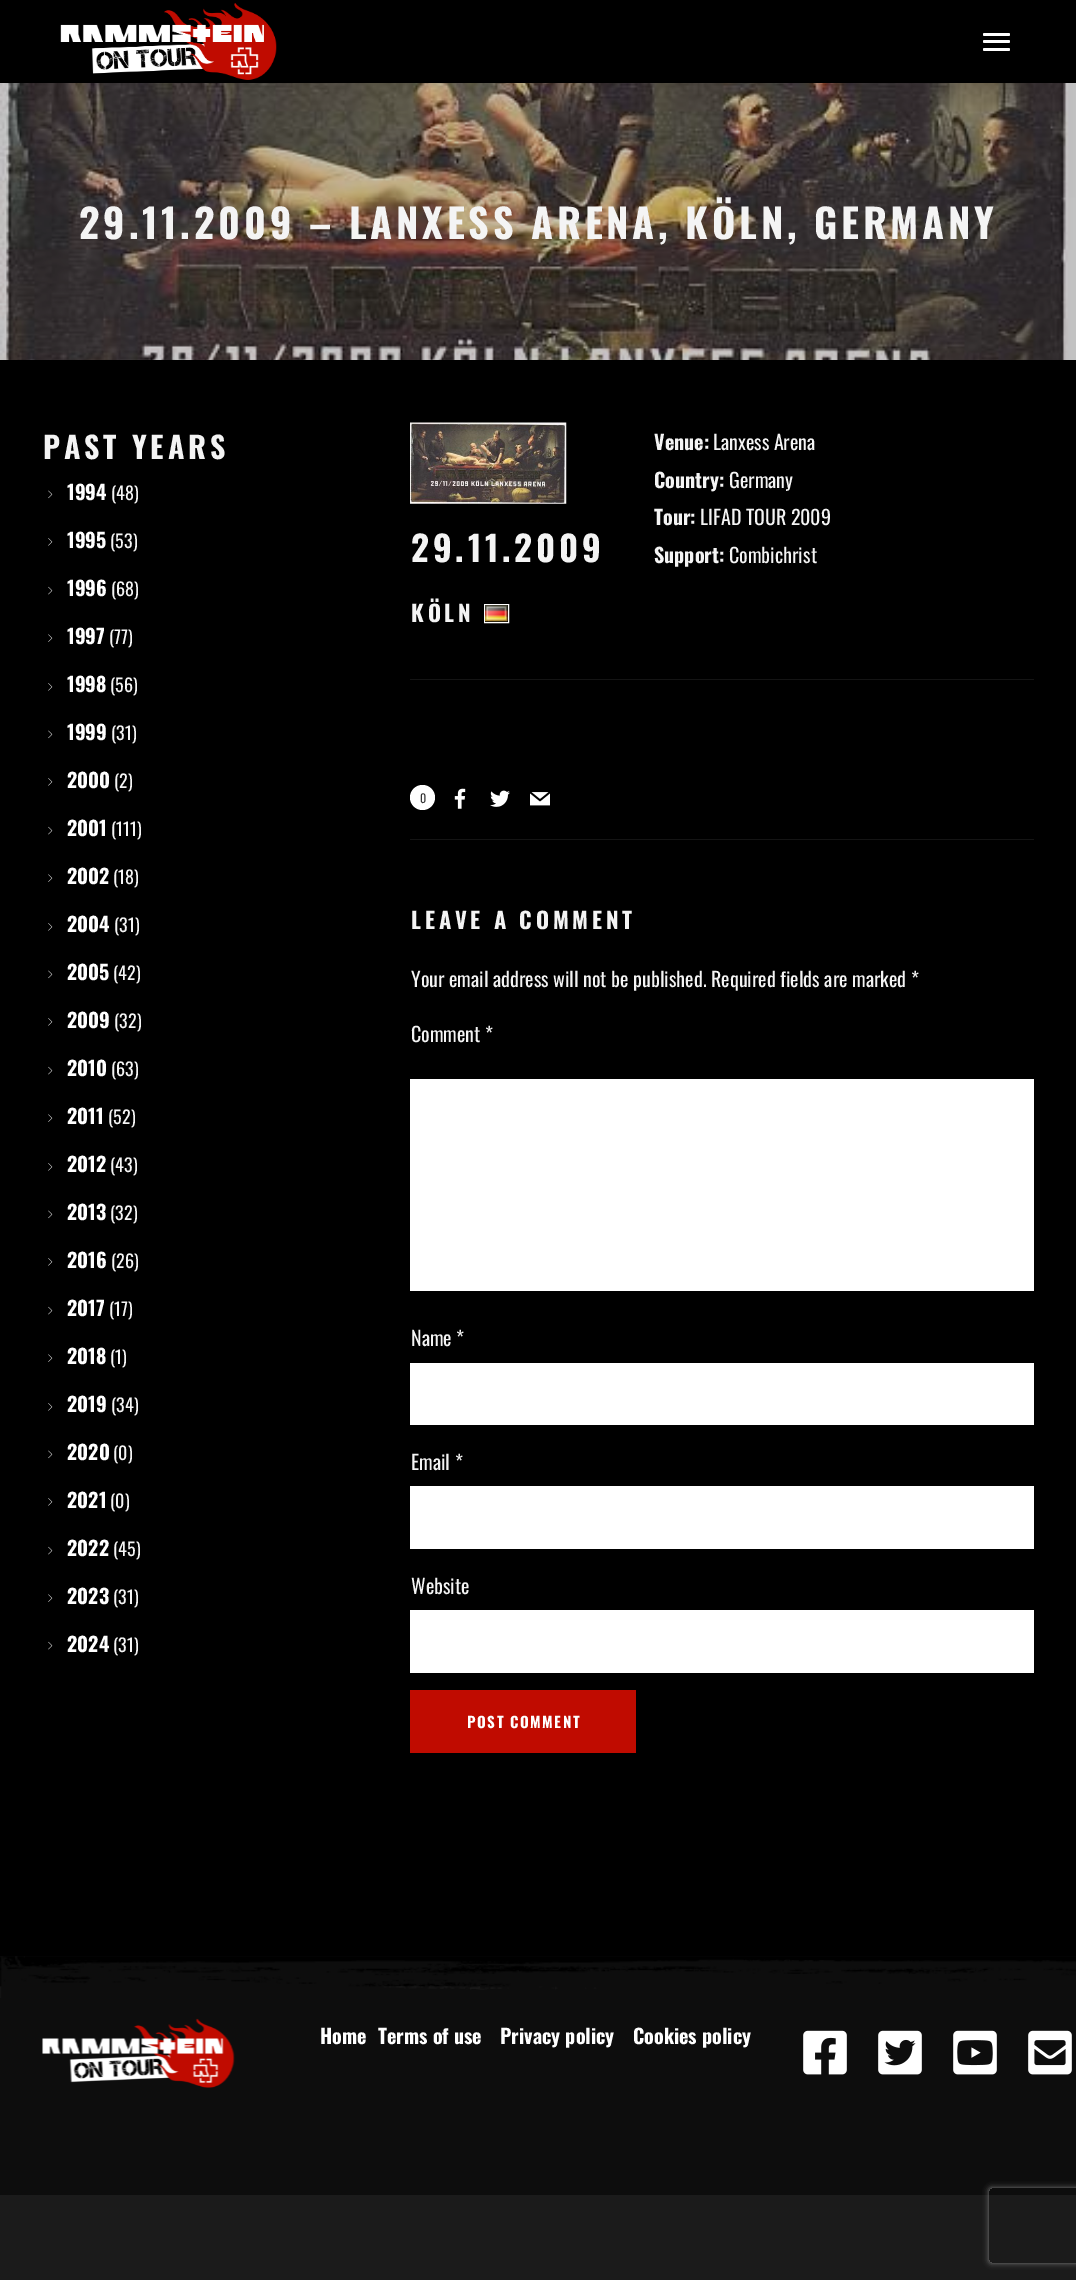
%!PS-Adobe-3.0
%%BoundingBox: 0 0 1076 2280
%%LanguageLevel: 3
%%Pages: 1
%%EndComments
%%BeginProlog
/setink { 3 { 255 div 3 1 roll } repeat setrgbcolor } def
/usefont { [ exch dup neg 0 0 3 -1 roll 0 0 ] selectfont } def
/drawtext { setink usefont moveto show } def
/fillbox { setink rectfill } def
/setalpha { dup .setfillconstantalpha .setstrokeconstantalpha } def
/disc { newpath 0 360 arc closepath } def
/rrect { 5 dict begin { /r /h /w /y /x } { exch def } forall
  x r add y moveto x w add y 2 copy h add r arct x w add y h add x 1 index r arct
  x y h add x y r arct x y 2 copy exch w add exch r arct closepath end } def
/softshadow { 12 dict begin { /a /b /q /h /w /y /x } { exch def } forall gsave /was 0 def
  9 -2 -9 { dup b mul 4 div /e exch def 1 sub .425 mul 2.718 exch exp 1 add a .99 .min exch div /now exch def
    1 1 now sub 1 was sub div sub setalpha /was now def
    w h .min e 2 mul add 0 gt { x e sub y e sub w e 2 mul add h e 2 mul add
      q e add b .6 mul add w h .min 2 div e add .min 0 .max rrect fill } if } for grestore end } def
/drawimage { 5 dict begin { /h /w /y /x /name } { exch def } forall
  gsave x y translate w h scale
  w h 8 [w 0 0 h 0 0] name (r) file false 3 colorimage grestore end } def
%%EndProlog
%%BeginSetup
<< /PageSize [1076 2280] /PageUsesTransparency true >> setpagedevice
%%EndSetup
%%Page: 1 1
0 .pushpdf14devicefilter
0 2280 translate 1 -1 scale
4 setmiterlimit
0 0 1076 2280 27 27 27 fillbox
0 0 1076 83 0 0 0 fillbox
(assets/img1.rgb) 60 3 217 77 drawimage
255 255 255 setink
983 33 27 3 1.5 rrect fill
983 40 27 3 1.5 rrect fill
983 48 27 3 1.5 rrect fill
(assets/img2.rgb) 0 83 1076 277 drawimage
/Oswald-Bold 40 usefont
244 244 244 setink
79 239 moveto 3.75 0 (29.11.2009 – LANXESS ARENA, KÖLN, GERMANY) ashow
0 360 1076 1596 0 0 0 fillbox
/Oswald-Bold 30 usefont
244 244 244 setink
43 459 moveto 3.75 0 (PAST YEARS) ashow
(assets/img3.rgb) 48 490 5 9 drawimage
(1994) 67 500 /Oswald-Bold 20 255 255 255 drawtext
(\(48\)) 111 500 /Oswald-Regular 18 244 244 244 drawtext
(assets/img4.rgb) 48 538 5 8 drawimage
(1995) 67 548 /Oswald-Bold 20 255 255 255 drawtext
(\(53\)) 110 548 /Oswald-Regular 18 244 244 244 drawtext
(assets/img5.rgb) 48 586 5 9 drawimage
(1996) 67 596 /Oswald-Bold 20 255 255 255 drawtext
(\(68\)) 111 596 /Oswald-Regular 18 244 244 244 drawtext
(assets/img6.rgb) 48 634 5 8 drawimage
(1997) 67 644 /Oswald-Bold 20 255 255 255 drawtext
(\(77\)) 109 644 /Oswald-Regular 18 244 244 244 drawtext
(assets/img4.rgb) 48 683 5 8 drawimage
(1998) 67 692 /Oswald-Bold 20 255 255 255 drawtext
(\(56\)) 110 692 /Oswald-Regular 18 244 244 244 drawtext
(assets/img3.rgb) 48 730 5 9 drawimage
(1999) 67 740 /Oswald-Bold 20 255 255 255 drawtext
(\(31\)) 111 740 /Oswald-Regular 18 244 244 244 drawtext
(assets/img4.rgb) 48 778 5 8 drawimage
(2000) 67 788 /Oswald-Bold 20 255 255 255 drawtext
(\(2\)) 114 788 /Oswald-Regular 18 244 244 244 drawtext
(assets/img5.rgb) 48 826 5 9 drawimage
(2001) 67 836 /Oswald-Bold 20 255 255 255 drawtext
(\(111\)) 111 836 /Oswald-Regular 18 244 244 244 drawtext
(assets/img6.rgb) 48 874 5 8 drawimage
(2002) 67 884 /Oswald-Bold 20 255 255 255 drawtext
(\(18\)) 113 884 /Oswald-Regular 18 244 244 244 drawtext
(assets/img4.rgb) 48 923 5 8 drawimage
(2004) 67 932 /Oswald-Bold 20 255 255 255 drawtext
(\(31\)) 114 932 /Oswald-Regular 18 244 244 244 drawtext
(assets/img3.rgb) 48 970 5 9 drawimage
(2005) 67 980 /Oswald-Bold 20 255 255 255 drawtext
(\(42\)) 113 980 /Oswald-Regular 18 244 244 244 drawtext
(assets/img4.rgb) 48 1018 5 8 drawimage
(2009) 67 1028 /Oswald-Bold 20 255 255 255 drawtext
(\(32\)) 114 1028 /Oswald-Regular 18 244 244 244 drawtext
(assets/img5.rgb) 48 1066 5 9 drawimage
(2010) 67 1076 /Oswald-Bold 20 255 255 255 drawtext
(\(63\)) 111 1076 /Oswald-Regular 18 244 244 244 drawtext
(assets/img6.rgb) 48 1114 5 8 drawimage
(2011) 67 1124 /Oswald-Bold 20 255 255 255 drawtext
(\(52\)) 108 1124 /Oswald-Regular 18 244 244 244 drawtext
(assets/img4.rgb) 48 1163 5 8 drawimage
(2012) 67 1172 /Oswald-Bold 20 255 255 255 drawtext
(\(43\)) 110 1172 /Oswald-Regular 18 244 244 244 drawtext
(assets/img3.rgb) 48 1210 5 9 drawimage
(2013) 67 1220 /Oswald-Bold 20 255 255 255 drawtext
(\(32\)) 110 1220 /Oswald-Regular 18 244 244 244 drawtext
(assets/img4.rgb) 48 1258 5 8 drawimage
(2016) 67 1268 /Oswald-Bold 20 255 255 255 drawtext
(\(26\)) 111 1268 /Oswald-Regular 18 244 244 244 drawtext
(assets/img5.rgb) 48 1306 5 9 drawimage
(2017) 67 1316 /Oswald-Bold 20 255 255 255 drawtext
(\(17\)) 109 1316 /Oswald-Regular 18 244 244 244 drawtext
(assets/img6.rgb) 48 1354 5 8 drawimage
(2018) 67 1364 /Oswald-Bold 20 255 255 255 drawtext
(\(1\)) 110 1364 /Oswald-Regular 18 244 244 244 drawtext
(assets/img4.rgb) 48 1403 5 8 drawimage
(2019) 67 1412 /Oswald-Bold 20 255 255 255 drawtext
(\(34\)) 111 1412 /Oswald-Regular 18 244 244 244 drawtext
(assets/img3.rgb) 48 1450 5 9 drawimage
(2020) 67 1460 /Oswald-Bold 20 255 255 255 drawtext
(\(0\)) 113 1460 /Oswald-Regular 18 244 244 244 drawtext
(assets/img4.rgb) 48 1498 5 8 drawimage
(2021) 67 1508 /Oswald-Bold 20 255 255 255 drawtext
(\(0\)) 110 1508 /Oswald-Regular 18 244 244 244 drawtext
(assets/img5.rgb) 48 1546 5 9 drawimage
(2022) 67 1556 /Oswald-Bold 20 255 255 255 drawtext
(\(45\)) 113 1556 /Oswald-Regular 18 244 244 244 drawtext
(assets/img6.rgb) 48 1594 5 8 drawimage
(2023) 67 1604 /Oswald-Bold 20 255 255 255 drawtext
(\(31\)) 113 1604 /Oswald-Regular 18 244 244 244 drawtext
(assets/img5.rgb) 48 1641 5 9 drawimage
(2024) 67 1652 /Oswald-Bold 20 255 255 255 drawtext
(\(31\)) 113 1652 /Oswald-Regular 18 244 244 244 drawtext
(Venue:) 654 450 /Oswald-Bold 20 244 244 244 drawtext
(Lanxess Arena) 713 450 /Oswald-Regular 20 244 244 244 drawtext
(Country:) 654 488 /Oswald-Bold 20 244 244 244 drawtext
(Germany) 729 488 /Oswald-Regular 20 244 244 244 drawtext
(Tour:) 654 525 /Oswald-Bold 20 244 244 244 drawtext
(LIFAD TOUR 2009) 700 525 /Oswald-Regular 20 244 244 244 drawtext
(Support:) 654 563 /Oswald-Bold 20 244 244 244 drawtext
(Combichrist) 729 563 /Oswald-Regular 20 244 244 244 drawtext
(assets/img7.rgb) 410 422 157 82 drawimage
/Oswald-Bold 35 usefont
411 562 moveto 3.75 0 (29.11.2009) ashow
/Oswald-Bold 22.5 usefont
411 622 moveto 3.75 0 (KÖLN) ashow
255 255 255 setink
484.5 604.5 24 18 rectstroke
(assets/img8.rgb) 485 605 23 17 drawimage
410 679 624 1 20 20 20 fillbox
255 255 255 setink
422.5 797.5 12.5 disc fill
(0) 420 803 /Oswald-Regular 12 51 51 51 drawtext
(assets/img9.rgb) 454 788 12 21 drawimage
(assets/img10.rgb) 490 790 20 17 drawimage
(assets/img11.rgb) 530 792 20 14 drawimage
410 839 624 1 20 20 20 fillbox
/Oswald-Bold 22.5 usefont
244 244 244 setink
411 929 moveto 3.75 0 (LEAVE A COMMENT) ashow
(Your email address will not be published. Required fields are marked *) 411 987 /Oswald-Regular 20 244 244 244 drawtext
(Comment *) 411 1042 /Oswald-Regular 20 244 244 244 drawtext
410 1079 624 212 255 255 255 fillbox
(Name *) 411 1346 /Oswald-Regular 20 244 244 244 drawtext
410 1363 624 62 255 255 255 fillbox
(Email *) 411 1470 /Oswald-Regular 20 244 244 244 drawtext
410 1486 624 63 255 255 255 fillbox
(Website) 411 1594 /Oswald-Regular 20 244 244 244 drawtext
410 1610 624 63 255 255 255 fillbox
410 1690 226 63 192 11 0 fillbox
/Oswald-Bold 15 usefont
255 255 255 setink
467 1728 moveto 1.5 0 (POST COMMENT) ashow
0 1956 1076 239 13 13 13 fillbox
(assets/img12.rgb) 0 1956 1076 42 drawimage
(assets/img13.rgb) 42 2018 193 70 drawimage
(Home) 320 2044 /Oswald-Bold 20 255 255 255 drawtext
(Terms of use) 378 2044 /Oswald-Bold 20 255 255 255 drawtext
(Privacy policy) 500 2044 /Oswald-Bold 20 255 255 255 drawtext
(Cookies policy) 633 2044 /Oswald-Bold 20 255 255 255 drawtext
(assets/img14.rgb) 803 2030 44 45 drawimage
(assets/img15.rgb) 878 2030 44 45 drawimage
(assets/img16.rgb) 953 2030 44 45 drawimage
(assets/img17.rgb) 1028 2030 44 45 drawimage
gsave
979 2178 moveto 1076 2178 lineto 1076 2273 lineto 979 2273 lineto closepath 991.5 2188 moveto 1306.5 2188 lineto 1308 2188 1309 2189 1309 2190.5 curveto 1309 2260.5 lineto 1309 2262 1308 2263 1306.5 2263 curveto 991.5 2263 lineto 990 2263 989 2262 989 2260.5 curveto 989 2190.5 lineto 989 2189 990 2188 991.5 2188 curveto closepath eoclip newpath
128 128 128 setink
989 2188 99 75 2.5 3 1 softshadow
grestore
.poppdf14devicefilter showpage
%%EOF
